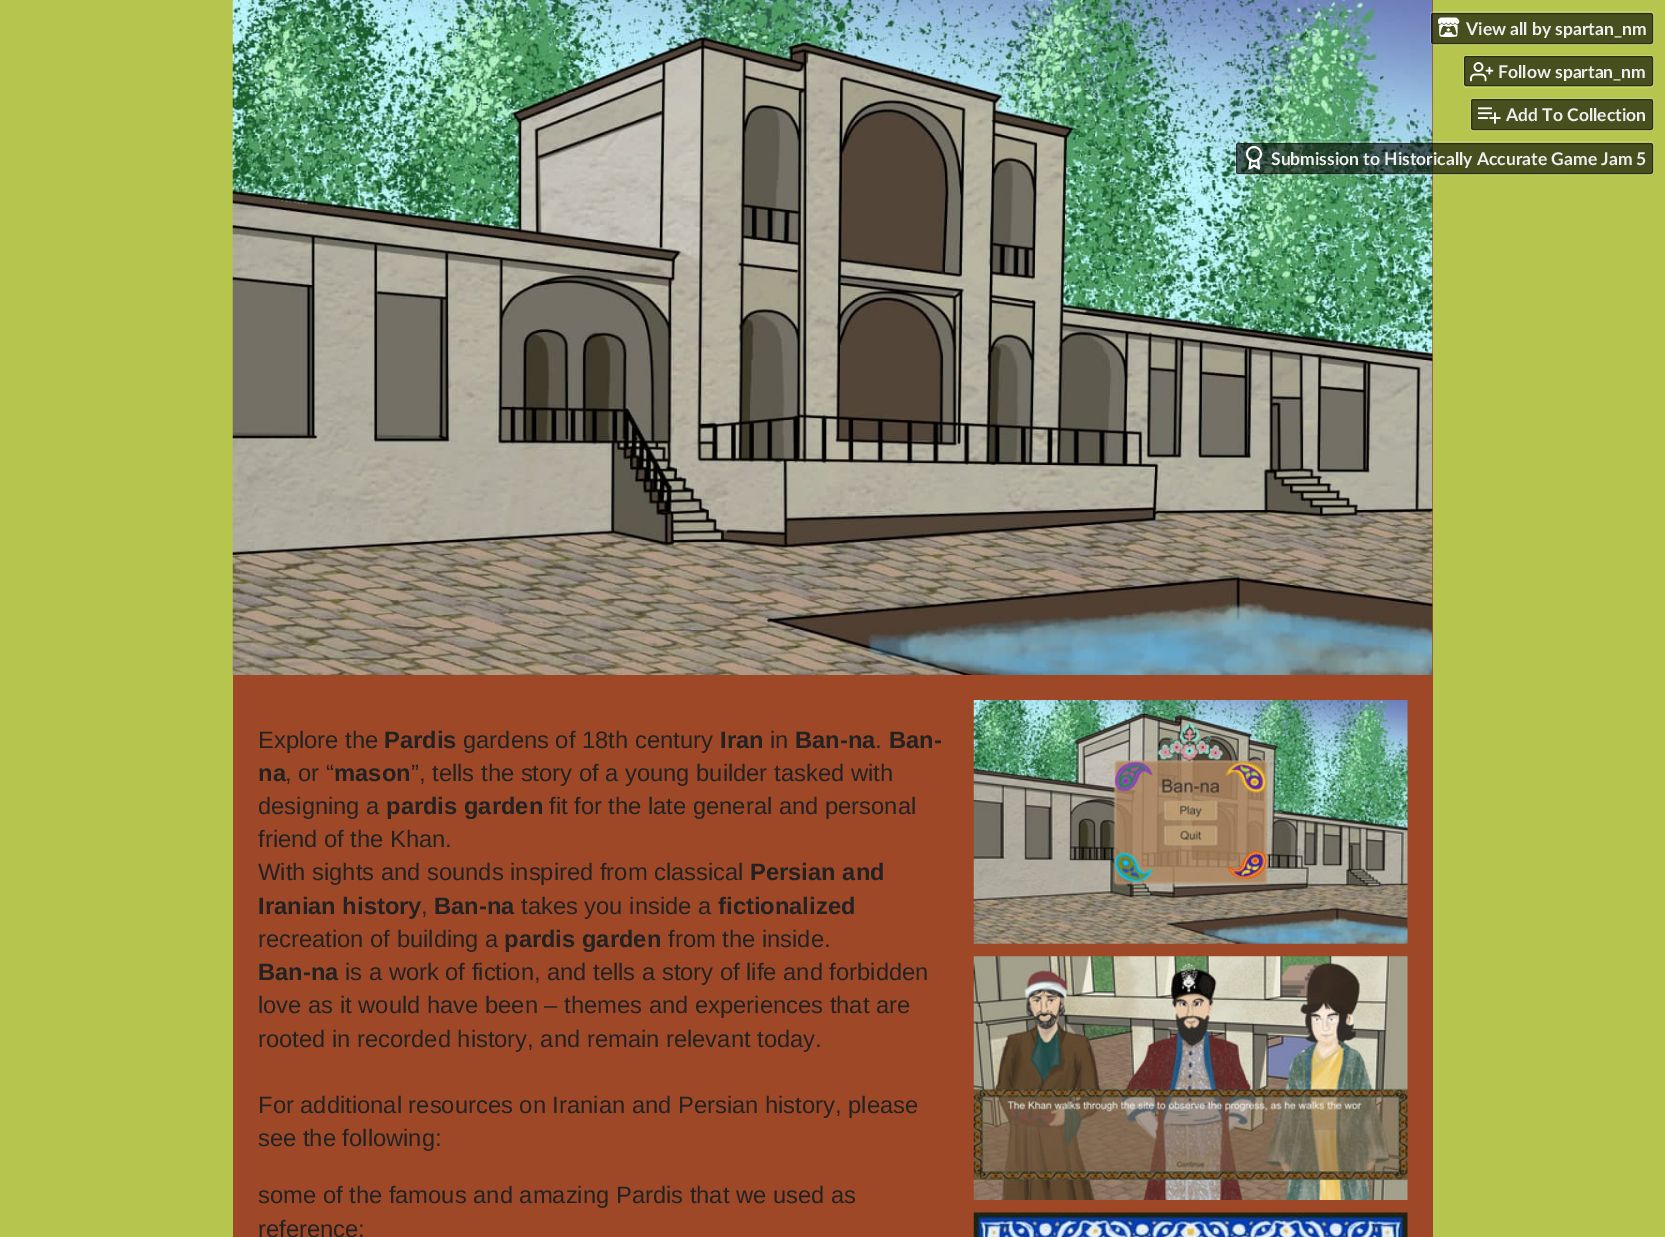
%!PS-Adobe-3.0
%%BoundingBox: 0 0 1665 1237
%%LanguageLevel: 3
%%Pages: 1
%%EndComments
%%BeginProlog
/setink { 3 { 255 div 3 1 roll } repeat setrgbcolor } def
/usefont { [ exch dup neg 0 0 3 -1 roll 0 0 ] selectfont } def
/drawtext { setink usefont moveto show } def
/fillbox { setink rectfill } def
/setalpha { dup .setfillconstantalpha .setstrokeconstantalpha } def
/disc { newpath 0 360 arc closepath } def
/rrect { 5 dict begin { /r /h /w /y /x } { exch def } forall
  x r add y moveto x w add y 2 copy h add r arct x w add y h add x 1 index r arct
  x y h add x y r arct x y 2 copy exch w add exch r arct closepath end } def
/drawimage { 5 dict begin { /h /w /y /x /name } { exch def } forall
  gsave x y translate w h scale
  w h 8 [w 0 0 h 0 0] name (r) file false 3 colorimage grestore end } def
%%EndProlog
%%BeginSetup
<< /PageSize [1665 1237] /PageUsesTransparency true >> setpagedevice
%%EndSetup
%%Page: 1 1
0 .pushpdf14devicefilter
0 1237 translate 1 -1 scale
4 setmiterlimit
0 0 1665 1237 181 197 77 fillbox
233 0 1200 1237 158 72 40 fillbox
(assets/img4.rgb) 232 0 1201 675 drawimage
0.2 setalpha
255 255 255 setink
1430.5 11.5 223 33 3.5 rrect stroke
0.6 setalpha
0 0 0 setink
1431 13 222 31 2.5 rrect fill
0.5 setalpha
10 10 10 setink
1431.5 13.5 221 30 2 rrect stroke
1 setalpha
(assets/img1.rgb) 1438 17 22 21 drawimage
(View all by spartan_nm) 1466 35 /Lato-Bold 17.5 238 238 238 drawtext
196 209 113 setink
1463.5 55.5 190 32 3.5 rrect stroke
0.6 setalpha
0 0 0 setink
1464 56 189 30 2.5 rrect fill
0.5 setalpha
10 10 10 setink
1464.5 56.5 188 29 2 rrect stroke
1 setalpha
(assets/img2.rgb) 1470 62 24 20 drawimage
(Follow spartan_nm) 1498 78 /Lato-Bold 17.5 238 238 238 drawtext
196 209 113 setink
1470.5 98.5 183 32 3.5 rrect stroke
0.6 setalpha
0 0 0 setink
1471 99 182 31 2.5 rrect fill
0.5 setalpha
10 10 10 setink
1471.5 99.5 181 30 2 rrect stroke
1 setalpha
(assets/img3.rgb) 1478 107 23 17 drawimage
(Add To Collection) 1506 121 /Lato-Bold 17.5 238 238 238 drawtext
0.2 setalpha
255 255 255 setink
1235.5 141.5 418 33 3.5 rrect stroke
0.6 setalpha
0 0 0 setink
1236 143 417 31 2.5 rrect fill
0.5 setalpha
10 10 10 setink
1236.5 143.5 416 30 2 rrect stroke
1 setalpha
255 255 255 setink
1.9 setlinewidth
1254 154 7 disc stroke
1 setlinecap
1 setlinejoin
1250.5 159.5 moveto 1249.5 168.5 lineto 1254 165.5 lineto 1259 168.5 lineto 1258 159.5 lineto stroke
(Submission to Historically Accurate Game Jam 5) 1271 165 /Lato-Bold 17.5 238 238 238 drawtext
(Explore the) 258 748 /LiberationSans-Regular 23.75 34 34 34 drawtext
(Pardis) 384 748 /LiberationSans-Bold 23.75 34 34 34 drawtext
(gardens of 18th century) 463 748 /LiberationSans-Regular 23.75 34 34 34 drawtext
(Iran) 720 748 /LiberationSans-Bold 23.75 34 34 34 drawtext
(in) 770 748 /LiberationSans-Regular 23.75 34 34 34 drawtext
(Ban-na) 795 748 /LiberationSans-Bold 23.75 34 34 34 drawtext
(.) 875 748 /LiberationSans-Regular 23.75 34 34 34 drawtext
(Ban-) 889 748 /LiberationSans-Bold 23.75 34 34 34 drawtext
(na) 258 781 /LiberationSans-Bold 23.75 34 34 34 drawtext
(, or “) 285 781 /LiberationSans-Regular 23.75 34 34 34 drawtext
(mason) 334 781 /LiberationSans-Bold 23.75 34 34 34 drawtext
(”, tells the story of a young builder tasked with) 411 781 /LiberationSans-Regular 23.75 34 34 34 drawtext
(designing a) 258 814 /LiberationSans-Regular 23.75 34 34 34 drawtext
(pardis garden) 386 814 /LiberationSans-Bold 23.75 34 34 34 drawtext
(fit for the late general and personal) 549 814 /LiberationSans-Regular 23.75 34 34 34 drawtext
(friend of the Khan.) 258 847 /LiberationSans-Regular 23.75 34 34 34 drawtext
(With sights and sounds inspired from classical) 258 880 /LiberationSans-Regular 23.75 34 34 34 drawtext
(Persian and) 750 880 /LiberationSans-Bold 23.75 34 34 34 drawtext
(Iranian history) 258 914 /LiberationSans-Bold 23.75 34 34 34 drawtext
(,) 421 914 /LiberationSans-Regular 23.75 34 34 34 drawtext
(Ban-na) 434 914 /LiberationSans-Bold 23.75 34 34 34 drawtext
(takes you inside a) 521 914 /LiberationSans-Regular 23.75 34 34 34 drawtext
(fictionalized) 718 914 /LiberationSans-Bold 23.75 34 34 34 drawtext
(recreation of building a) 258 947 /LiberationSans-Regular 23.75 34 34 34 drawtext
(pardis garden) 504 947 /LiberationSans-Bold 23.75 34 34 34 drawtext
(from the inside.) 668 947 /LiberationSans-Regular 23.75 34 34 34 drawtext
(Ban-na) 258 980 /LiberationSans-Bold 23.75 34 34 34 drawtext
(is a work of fiction, and tells a story of life and forbidden) 345 980 /LiberationSans-Regular 23.75 34 34 34 drawtext
(love as it would have been – themes and experiences that are) 258 1013 /LiberationSans-Regular 23.75 34 34 34 drawtext
(rooted in recorded history, and remain relevant today.) 258 1047 /LiberationSans-Regular 23.75 34 34 34 drawtext
(For additional resources on Iranian and Persian history, please) 258 1113 /LiberationSans-Regular 23.75 34 34 34 drawtext
(see the following:) 258 1146 /LiberationSans-Regular 23.75 34 34 34 drawtext
(some of the famous and amazing Pardis that we used as) 258 1203 /LiberationSans-Regular 23.75 34 34 34 drawtext
(reference:) 258 1237 /LiberationSans-Regular 23.75 34 34 34 drawtext
(assets/img5.rgb) 973 700 435 244 drawimage
(assets/img6.rgb) 973 956 435 244 drawimage
(assets/img7.rgb) 973 1212 435 25 drawimage
.poppdf14devicefilter showpage
%%EOF
